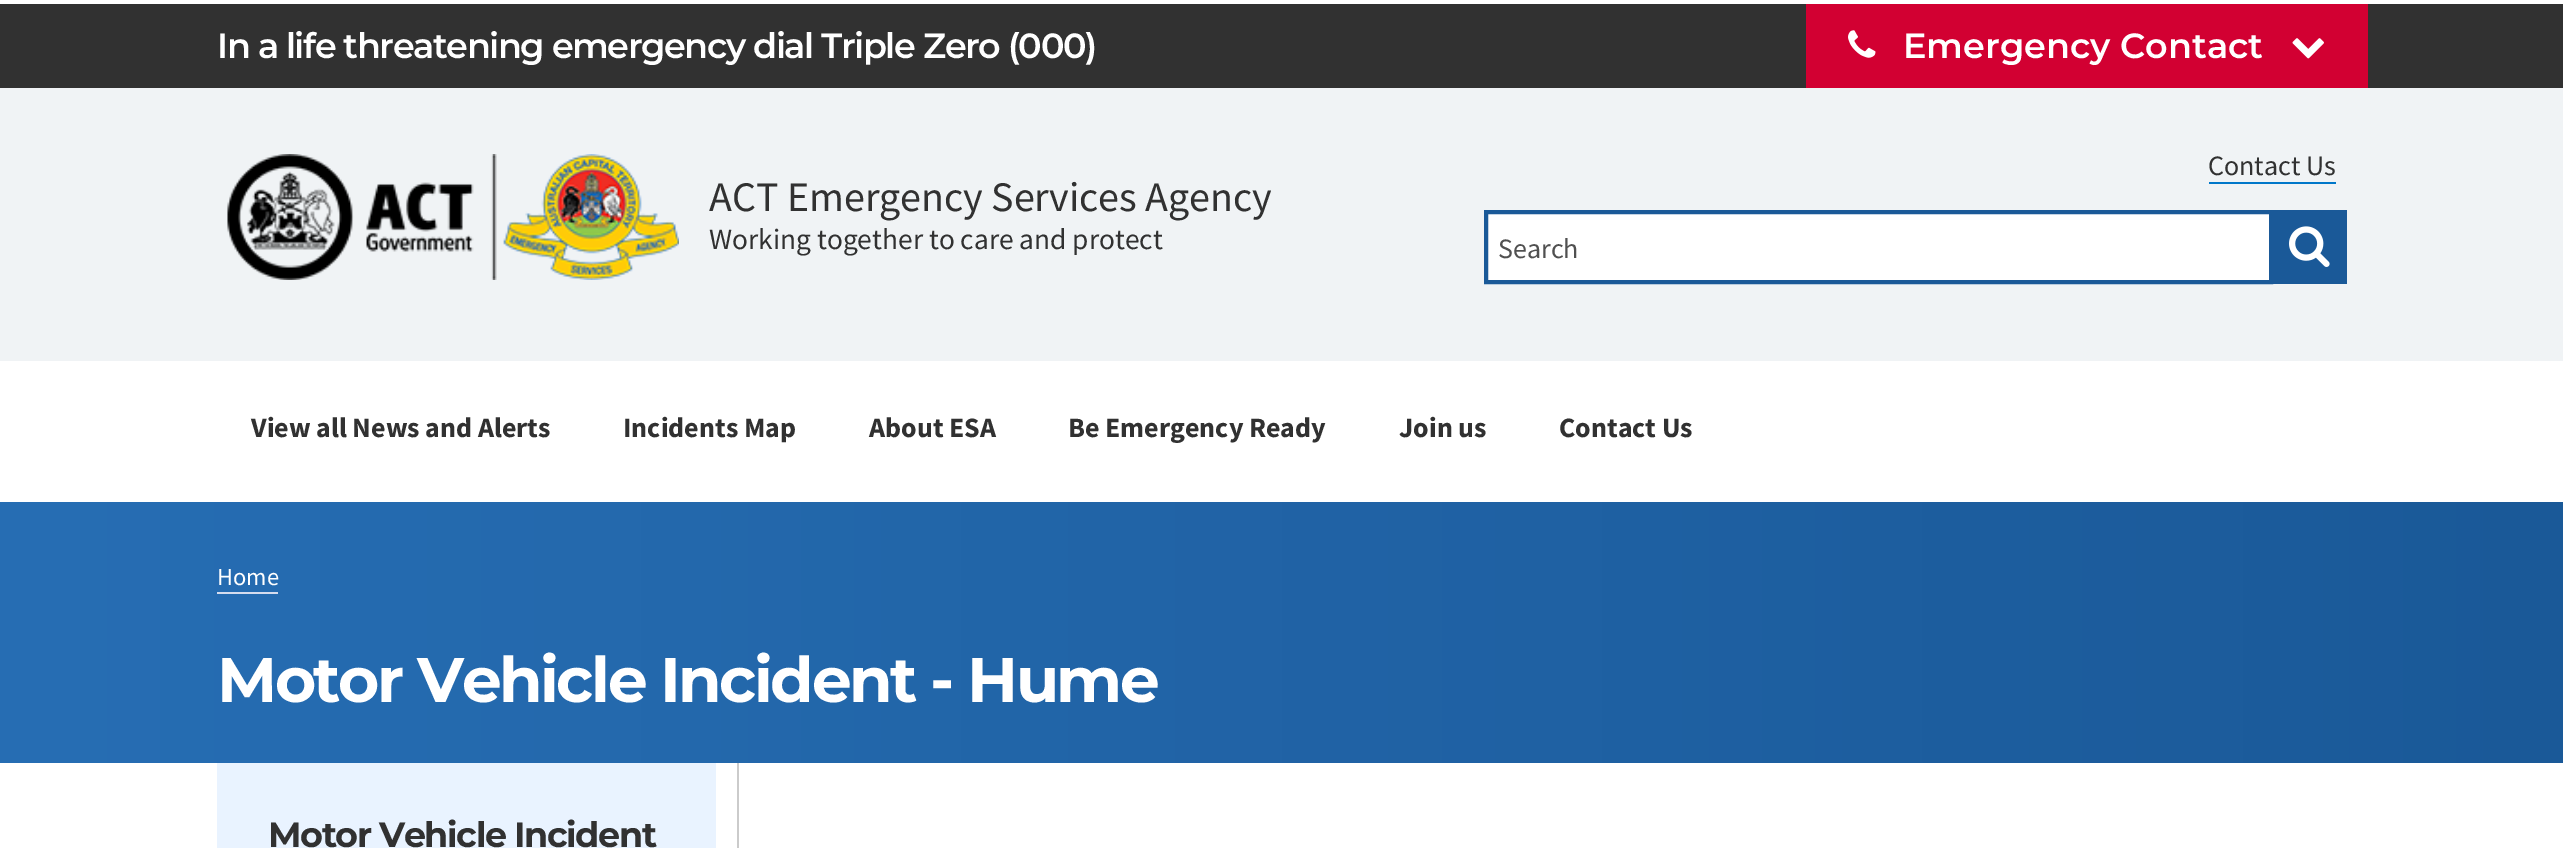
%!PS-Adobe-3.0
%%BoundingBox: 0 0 2563 848
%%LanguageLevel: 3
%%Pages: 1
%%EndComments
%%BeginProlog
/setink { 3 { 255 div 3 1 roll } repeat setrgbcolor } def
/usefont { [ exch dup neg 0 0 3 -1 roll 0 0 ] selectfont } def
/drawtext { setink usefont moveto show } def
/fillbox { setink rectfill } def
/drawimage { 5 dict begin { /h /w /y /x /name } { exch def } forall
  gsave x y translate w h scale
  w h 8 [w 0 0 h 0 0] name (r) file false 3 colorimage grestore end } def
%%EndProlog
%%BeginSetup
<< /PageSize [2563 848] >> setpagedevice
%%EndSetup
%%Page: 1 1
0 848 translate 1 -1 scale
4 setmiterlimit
0 0 2563 848 255 255 255 fillbox
0 4 2563 84 49 49 49 fillbox
/Montserrat-SemiBold 35 usefont
255 255 255 setink
217 58 moveto -1.4 0 (In a life threatening emergency dial Triple Zero \(000\)) ashow
1806 4 562 84 210 0 50 fillbox
(assets/img1.rgb) 1848 30 28 28 drawimage
(Emergency Contact) 1903 58 /Montserrat-SemiBold 35 255 255 255 drawtext
(assets/img2.rgb) 2292 38 32 21 drawimage
0 88 2563 273 240 243 245 fillbox
(assets/img3.rgb) 227 154 452 126 drawimage
(ACT Emergency Services Agency) 709 211 /SourceSansPro-Regular 42 49 49 49 drawtext
(Working together to care and protect) 709 249 /SourceSansPro-Regular 29.4 49 49 49 drawtext
(Contact Us) 2208 175 /SourceSansPro-Regular 28 49 49 49 drawtext
2209 182 127 2 0 119 201 fillbox
255 255 255 setink
1486 212 moveto 2271 212 lineto 2271 282 lineto 1486 282 lineto closepath gsave fill grestore
26 89 152 setink
4 setlinewidth
stroke
(Search) 1498 258 /SourceSansPro-Regular 28 80 80 80 drawtext
2273 210 74 74 26 89 152 fillbox
(assets/img4.rgb) 2289 226 41 41 drawimage
(View all News and Alerts) 251 437 /SourceSansPro-Bold 28 49 49 49 drawtext
(Incidents Map) 623 437 /SourceSansPro-Bold 28 49 49 49 drawtext
(About ESA) 869 437 /SourceSansPro-Bold 28 49 49 49 drawtext
(Be Emergency Ready) 1068 437 /SourceSansPro-Bold 28 49 49 49 drawtext
(Join us) 1399 437 /SourceSansPro-Bold 28 49 49 49 drawtext
(Contact Us) 1559 437 /SourceSansPro-Bold 28 49 49 49 drawtext
gsave 0 502 moveto 2563 502 lineto 2563 763 lineto 0 763 lineto closepath clip newpath
<< /ShadingType 2 /ColorSpace /DeviceRGB /Coords [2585 633 -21 633] /Extend [true true] /Function << /FunctionType 2 /Domain [0 1] /C0 [0.102 0.349 0.596] /C1 [0.153 0.431 0.706] /N 1 >> >> shfill grestore
(Home) 217 585 /SourceSansPro-Regular 24.5 255 255 255 drawtext
217 592 61 2 213 220 238 fillbox
/Montserrat-Bold 63 usefont
255 255 255 setink
217 702 moveto -2.5 0 (Motor Vehicle Incident - Hume) ashow
737 763 2 85 203 203 203 fillbox
217 763 499 85 233 243 255 fillbox
/Montserrat-Bold 35 usefont
49 49 49 setink
268 847 moveto -1.4 0 (Motor Vehicle Incident) ashow
showpage
%%EOF
